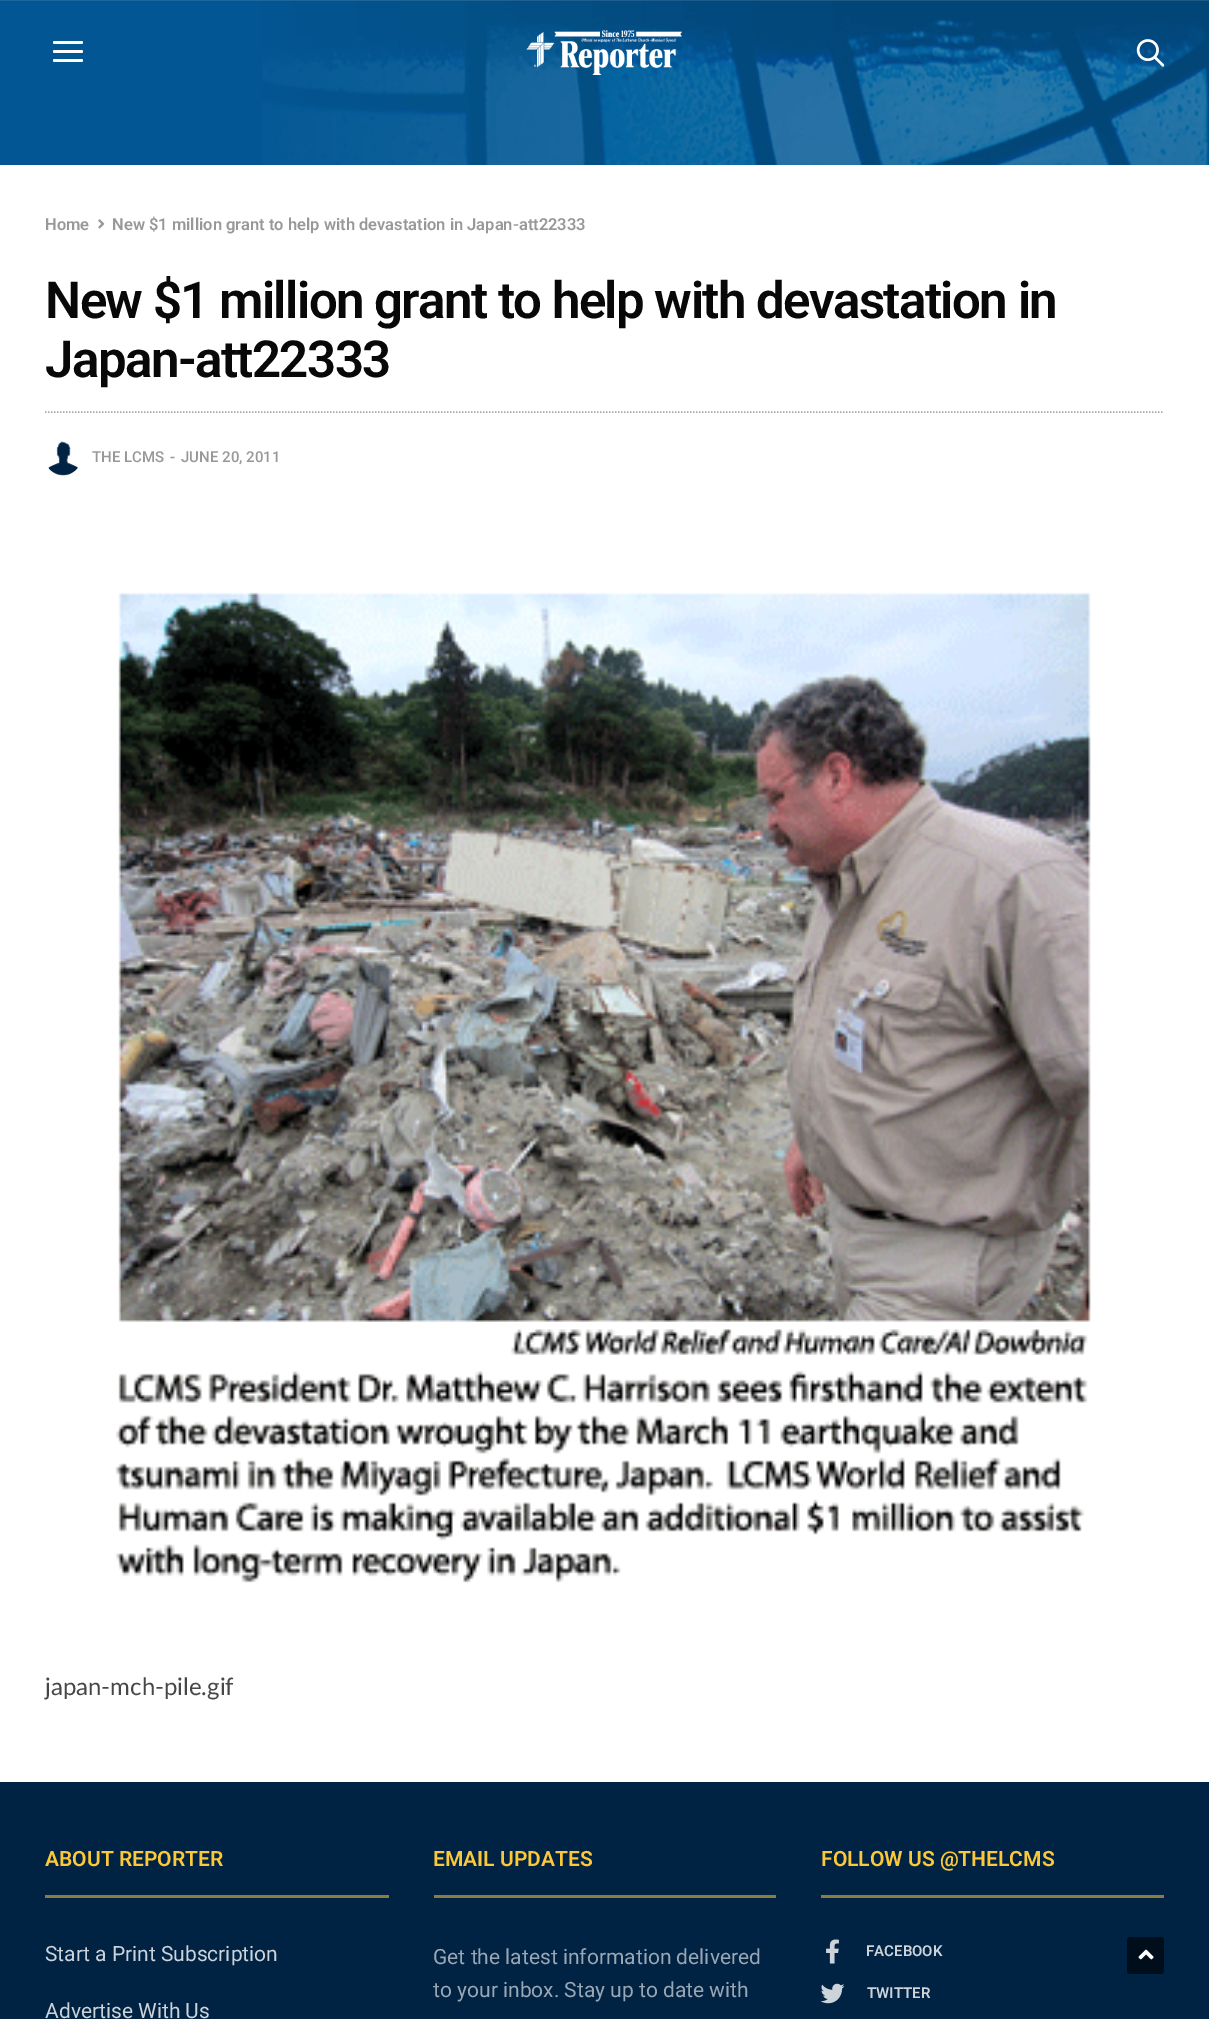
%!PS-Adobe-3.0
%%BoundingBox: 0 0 1209 2019
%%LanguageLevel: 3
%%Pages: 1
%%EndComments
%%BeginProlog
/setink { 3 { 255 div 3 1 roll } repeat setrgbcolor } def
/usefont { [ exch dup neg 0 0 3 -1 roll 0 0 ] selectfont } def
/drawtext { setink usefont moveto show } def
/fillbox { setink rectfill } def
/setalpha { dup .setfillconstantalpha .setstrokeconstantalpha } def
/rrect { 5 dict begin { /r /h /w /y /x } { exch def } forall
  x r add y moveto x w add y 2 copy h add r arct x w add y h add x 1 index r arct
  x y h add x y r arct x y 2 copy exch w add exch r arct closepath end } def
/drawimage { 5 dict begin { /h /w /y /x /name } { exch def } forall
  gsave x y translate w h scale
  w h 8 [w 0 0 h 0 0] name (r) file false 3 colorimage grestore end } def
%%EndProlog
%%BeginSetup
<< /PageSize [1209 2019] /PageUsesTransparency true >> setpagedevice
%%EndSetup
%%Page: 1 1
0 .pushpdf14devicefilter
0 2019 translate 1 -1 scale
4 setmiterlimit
0 0 1209 2019 0 34 67 fillbox
0 0 262 165 2 86 147 fillbox
(assets/img1.rgb) 262 0 947 165 drawimage
255 255 255 setink
53 41 30 3 1.5 rrect fill
53 50 30 3 1.5 rrect fill
53 59 30 3 1.5 rrect fill
(assets/img2.rgb) 526 30 156 45 drawimage
(assets/img3.rgb) 1136 39 28 28 drawimage
0.1 setalpha
0 0 1209 1 255 255 255 fillbox
1 setalpha
0 165 1209 1617 255 255 255 fillbox
(Home) 45 230 /Roboto-SemiBold 16.5 152 152 152 drawtext
(assets/img4.rgb) 98 219 7 10 drawimage
(New $1 million grant to help with devastation in Japan-att22333) 112 230 /Roboto-SemiBold 16.5 152 152 152 drawtext
168 168 168 setink
1.5 setlinewidth
[1.5 1.5] 0 setdash
45 412 moveto 1164 412 lineto stroke
/Roboto-SemiBold 51 usefont
8 8 8 setink
45 318 moveto -1.55 0 (New $1 million grant to help with devastation in) ashow
45 377 moveto -1.55 0 (Japan-att22333) ashow
(assets/img5.rgb) 48 441 30 35 drawimage
(THE LCMS) 92 462 /Roboto-Medium 15 152 152 152 drawtext
(-) 170 462 /Roboto-Medium 15 152 152 152 drawtext
(JUNE 20, 2011) 181 462 /Roboto-Medium 15 152 152 152 drawtext
(assets/img6.rgb) 115 592 976 991 drawimage
(japan-mch-pile.gif) 45 1695 /Lato-Regular 24 71 71 71 drawtext
45 1895 344 3 138 125 62 fillbox
(ABOUT REPORTER) 45 1866 /Roboto-SemiBold 21 251 200 58 drawtext
(Start a Print Subscription) 45 1961 /Roboto-Regular 21 204 211 217 drawtext
(Advertise With Us) 45 2018 /Roboto-Regular 21 204 211 217 drawtext
434 1895 342 3 138 125 62 fillbox
(EMAIL UPDATES) 433 1866 /Roboto-SemiBold 21 251 200 58 drawtext
(Get the latest information delivered) 433 1964 /Roboto-Regular 21 153 167 180 drawtext
(to your inbox. Stay up to date with) 433 1997 /Roboto-Regular 21 153 167 180 drawtext
821 1895 343 3 138 125 62 fillbox
(FOLLOW US @THELCMS) 821 1866 /Roboto-SemiBold 21 251 200 58 drawtext
(assets/img7.rgb) 826 1939 13 25 drawimage
(FACEBOOK) 866 1956 /Roboto-SemiBold 15 204 211 217 drawtext
(assets/img8.rgb) 821 1983 24 21 drawimage
(TWITTER) 867 1998 /Roboto-SemiBold 15 204 211 217 drawtext
0 14 27 setink
1127 1937 37 37 3 rrect fill
(assets/img9.rgb) 1138 1949 16 11 drawimage
.poppdf14devicefilter showpage
%%EOF
